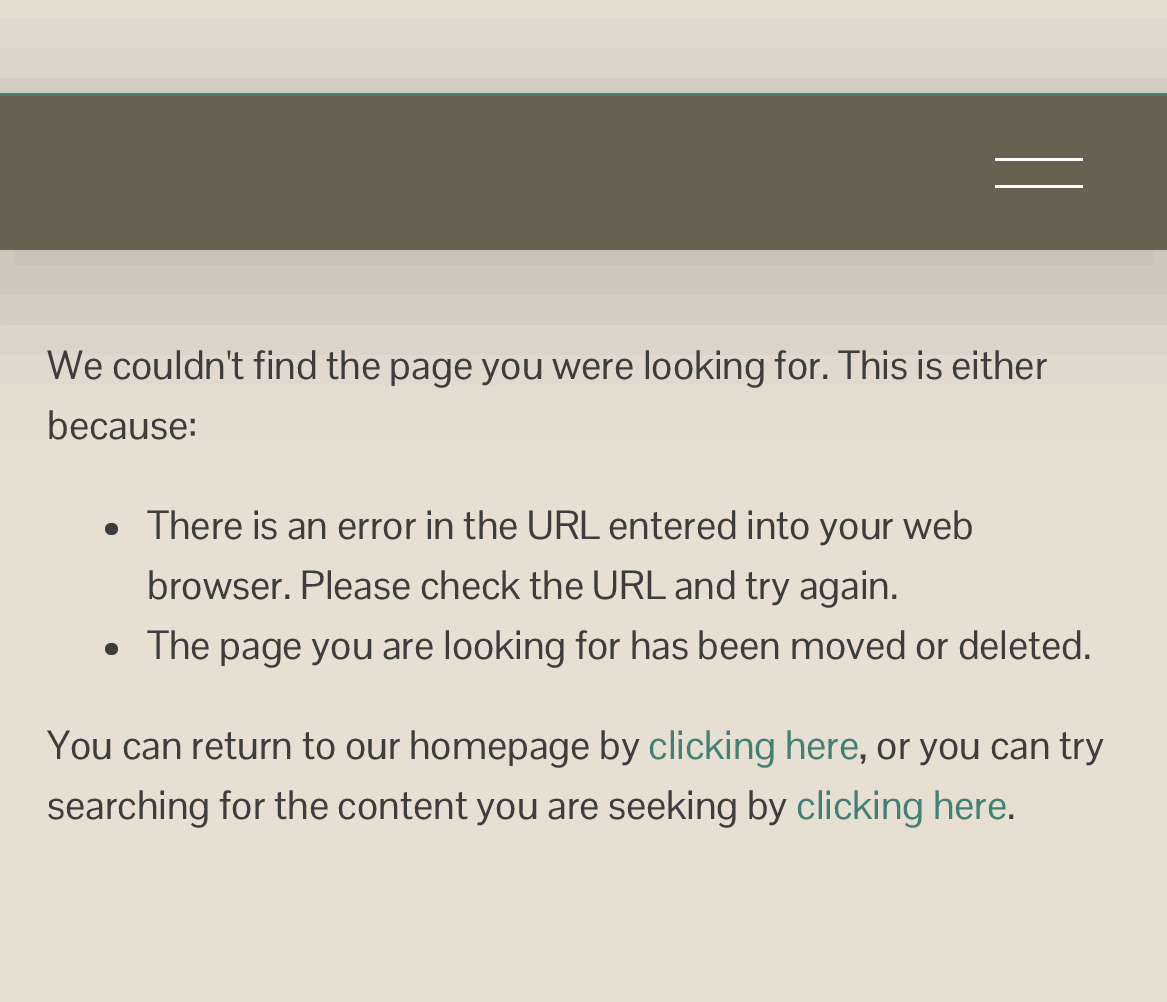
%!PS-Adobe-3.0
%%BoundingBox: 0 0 1167 1002
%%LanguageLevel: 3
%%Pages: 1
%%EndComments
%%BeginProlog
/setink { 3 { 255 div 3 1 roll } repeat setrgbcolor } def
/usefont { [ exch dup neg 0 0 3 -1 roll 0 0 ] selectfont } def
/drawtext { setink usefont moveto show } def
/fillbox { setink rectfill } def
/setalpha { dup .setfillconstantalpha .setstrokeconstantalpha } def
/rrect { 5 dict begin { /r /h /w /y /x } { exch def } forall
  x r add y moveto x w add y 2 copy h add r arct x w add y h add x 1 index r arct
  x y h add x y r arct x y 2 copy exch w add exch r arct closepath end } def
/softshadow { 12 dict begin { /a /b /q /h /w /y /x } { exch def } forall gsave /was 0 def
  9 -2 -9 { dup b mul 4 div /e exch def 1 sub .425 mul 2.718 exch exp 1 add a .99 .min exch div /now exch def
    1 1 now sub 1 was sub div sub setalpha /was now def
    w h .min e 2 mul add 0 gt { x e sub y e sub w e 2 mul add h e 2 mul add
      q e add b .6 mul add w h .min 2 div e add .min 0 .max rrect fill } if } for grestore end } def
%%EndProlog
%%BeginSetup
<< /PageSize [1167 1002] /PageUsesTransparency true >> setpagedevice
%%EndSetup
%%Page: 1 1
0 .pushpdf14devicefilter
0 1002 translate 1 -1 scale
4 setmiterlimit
0 0 1167 1002 231 223 210 fillbox
0 0 0 setink
-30 93 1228 217 0 60 0.15 softshadow
0 93 1167 3 65 128 118 fillbox
0 96 1167 154 104 96 80 fillbox
995 158 88 3 255 255 255 fillbox
995 185 88 3 255 255 255 fillbox
(We couldn't find the page you were looking for. This is either) 47 379 /PontanoSans-Regular 40 62 61 61 drawtext
(because:) 47 439 /PontanoSans-Regular 40 62 61 61 drawtext
105 523 13 12 6 rrect fill
(There is an error in the URL entered into your web) 147 539 /PontanoSans-Regular 40 62 61 61 drawtext
(browser. Please check the URL and try again.) 147 599 /PontanoSans-Regular 40 62 61 61 drawtext
105 643 13 12 6 rrect fill
(The page you are looking for has been moved or deleted.) 147 659 /PontanoSans-Regular 40 62 61 61 drawtext
(You can return to our homepage by) 47 759 /PontanoSans-Regular 40 62 61 61 drawtext
(clicking here) 648 759 /PontanoSans-Regular 40 65 128 118 drawtext
(, or you can try) 859 759 /PontanoSans-Regular 40 62 61 61 drawtext
(searching for the content you are seeking by) 47 819 /PontanoSans-Regular 40 62 61 61 drawtext
(clicking here) 796 819 /PontanoSans-Regular 40 65 128 118 drawtext
(.) 1007 819 /PontanoSans-Regular 40 62 61 61 drawtext
.poppdf14devicefilter showpage
%%EOF
